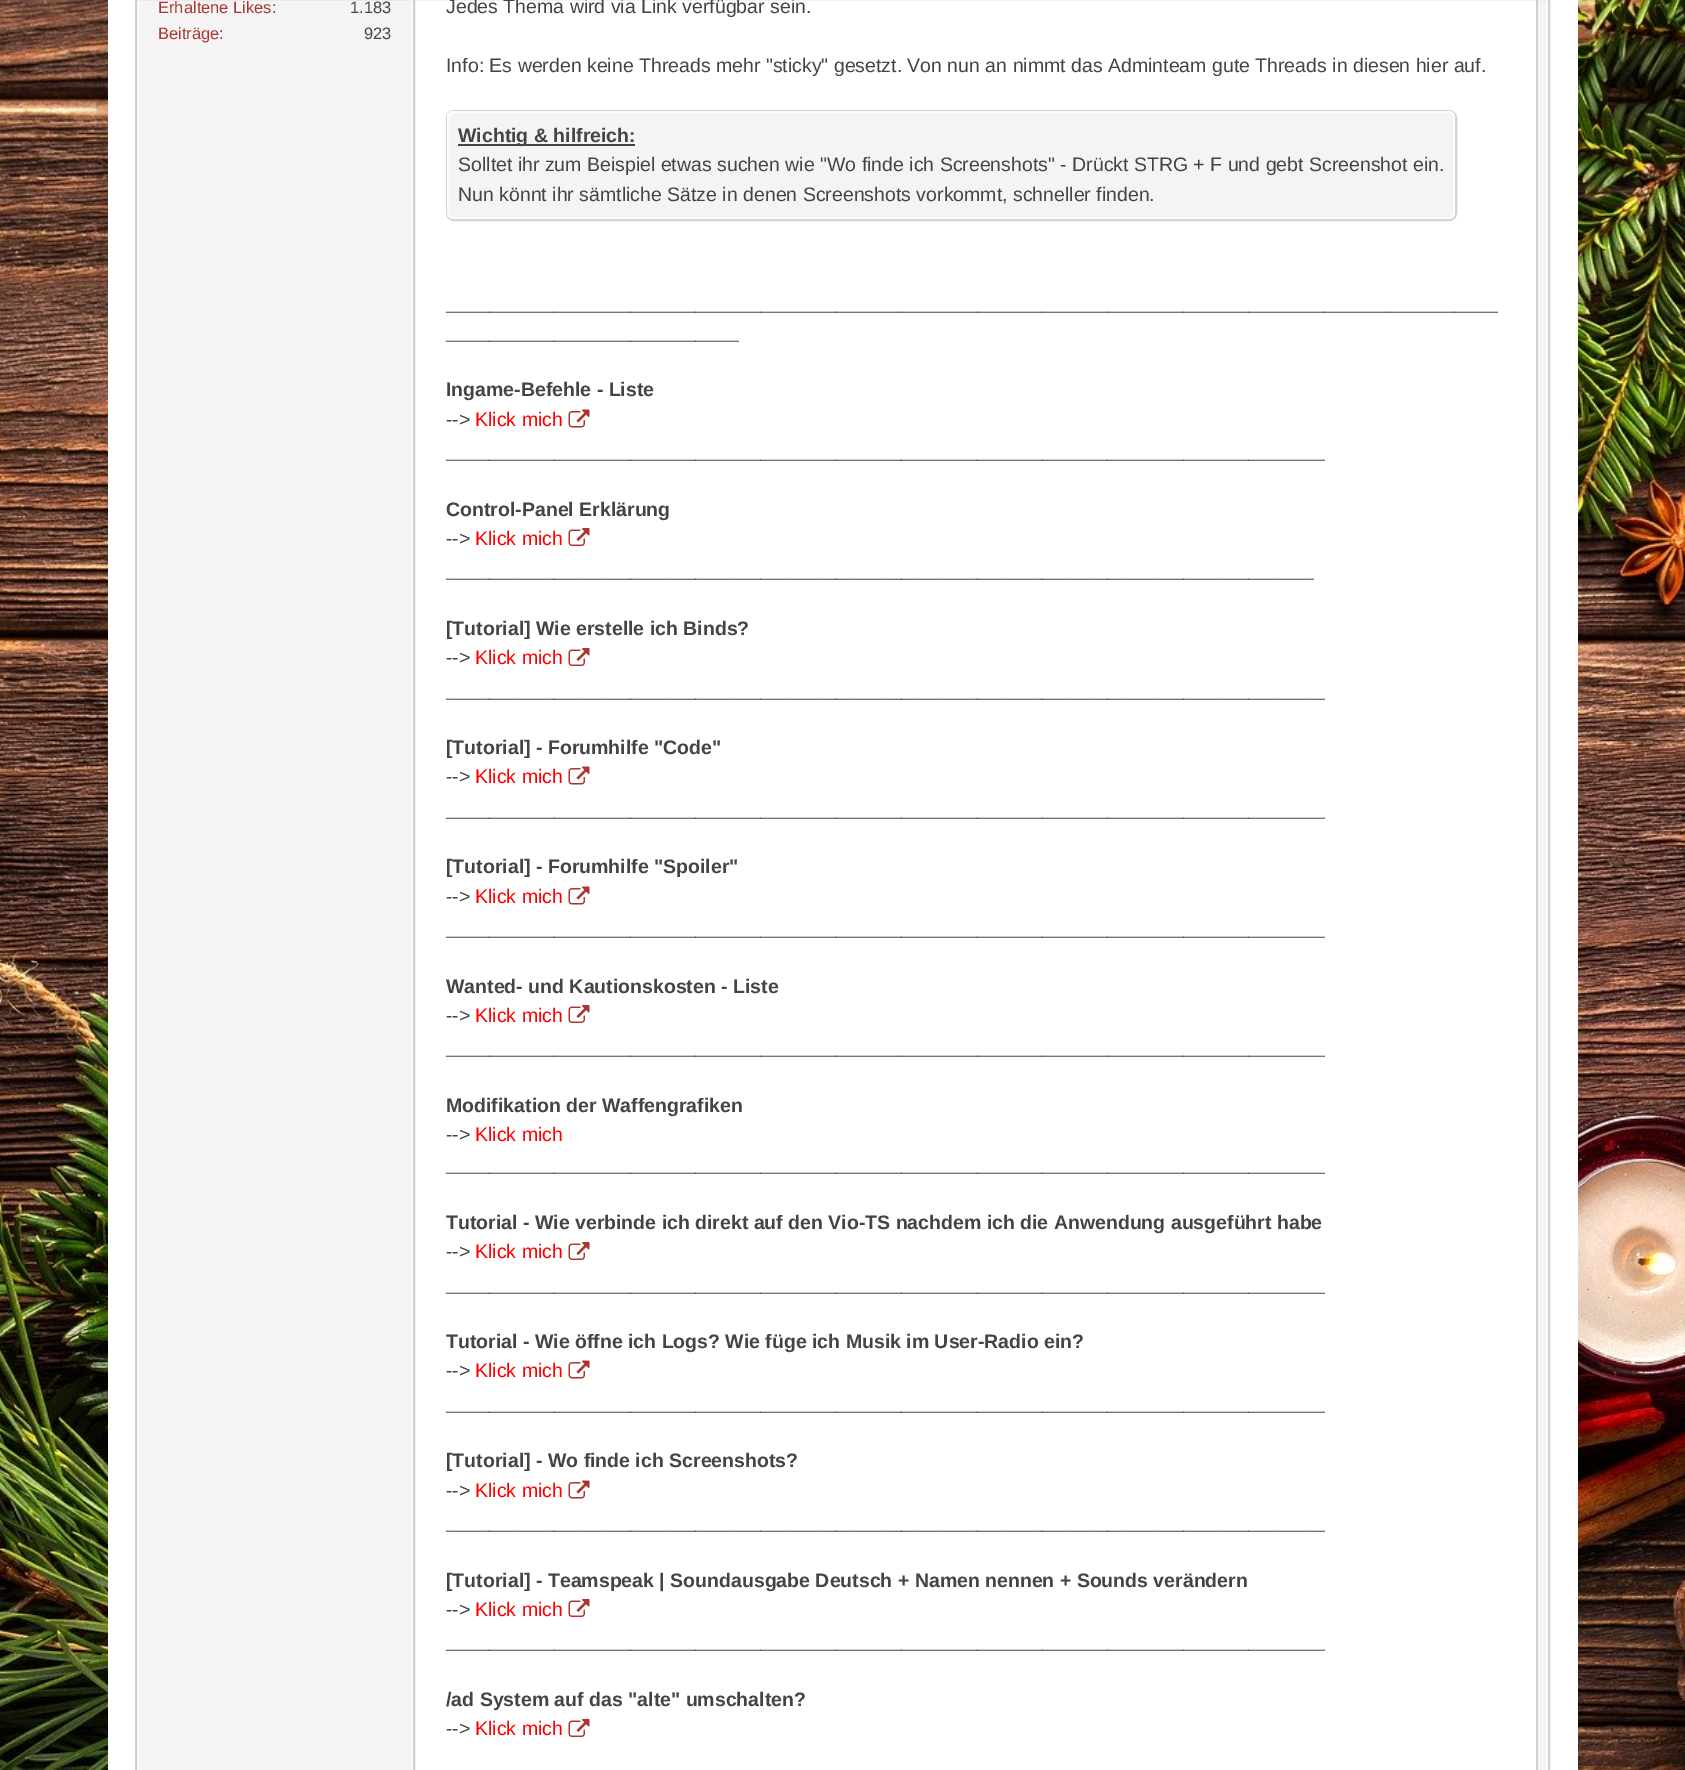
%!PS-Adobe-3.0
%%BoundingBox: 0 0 1685 1770
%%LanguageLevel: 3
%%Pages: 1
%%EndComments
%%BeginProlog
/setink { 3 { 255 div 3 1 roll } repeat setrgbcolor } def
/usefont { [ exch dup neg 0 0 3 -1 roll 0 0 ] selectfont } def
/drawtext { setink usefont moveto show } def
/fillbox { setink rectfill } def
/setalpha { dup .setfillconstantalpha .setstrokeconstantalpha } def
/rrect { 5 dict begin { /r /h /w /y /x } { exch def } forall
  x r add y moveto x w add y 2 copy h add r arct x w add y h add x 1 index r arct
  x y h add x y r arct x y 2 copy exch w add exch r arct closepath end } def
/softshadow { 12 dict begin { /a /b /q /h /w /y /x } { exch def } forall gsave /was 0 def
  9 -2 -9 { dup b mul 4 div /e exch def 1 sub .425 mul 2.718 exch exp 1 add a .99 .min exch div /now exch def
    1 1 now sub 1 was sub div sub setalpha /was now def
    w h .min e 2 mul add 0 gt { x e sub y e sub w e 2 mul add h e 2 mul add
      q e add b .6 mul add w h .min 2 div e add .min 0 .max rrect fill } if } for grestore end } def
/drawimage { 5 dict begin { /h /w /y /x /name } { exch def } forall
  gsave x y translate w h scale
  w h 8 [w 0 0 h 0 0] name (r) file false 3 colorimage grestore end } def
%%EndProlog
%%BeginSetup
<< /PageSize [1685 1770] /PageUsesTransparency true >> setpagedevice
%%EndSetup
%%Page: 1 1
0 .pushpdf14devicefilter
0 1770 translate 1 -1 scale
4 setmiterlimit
0 0 1685 1770 255 255 255 fillbox
(assets/img1.rgb) 0 0 1685 1770 drawimage
0 0 0 setink
134 -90 75 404 0 30 0.8 softshadow
1476 -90 75 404 0 30 0.8 softshadow
108 0 1470 1770 255 255 255 fillbox
139 0 1407 1770 244 244 244 fillbox
208 208 208 setink
2 setlinewidth
136 -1 1413 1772 rectstroke
(Erhaltene Likes) 158 13 /LiberationSans-Regular 16.5 171 54 48 drawtext
(:) 272 13 /LiberationSans-Regular 16.5 68 68 68 drawtext
(1.183) 350 13 /LiberationSans-Regular 16.5 68 68 68 drawtext
(Beiträge) 158 39 /LiberationSans-Regular 16.5 171 54 48 drawtext
(:) 219 39 /LiberationSans-Regular 16.5 68 68 68 drawtext
(923) 364 39 /LiberationSans-Regular 16.5 68 68 68 drawtext
252 252 252 setink
412 -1 1126 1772 rectstroke
255 255 255 setink
414 -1 moveto 1537 -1 lineto 1537 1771 lineto 414 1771 lineto closepath gsave fill grestore
208 208 208 setink
stroke
(Jedes Thema wird via Link verfügbar sein.) 446 13 /LiberationSans-Regular 19.5 68 68 68 drawtext
(Info: Es werden keine Threads mehr "sticky" gesetzt. Von nun an nimmt das Adminteam gute Threads in diesen hier auf.) 446 72 /LiberationSans-Regular 19.5 68 68 68 drawtext
252 252 252 setink
448 112 1006 106 5 rrect stroke
208 208 208 setink
447 111 1009 109 7 rrect stroke
244 244 244 setink
447 111 1008 108 6 rrect fill
0.7 setalpha
255 255 255 setink
448 112 1006 106 5 rrect stroke
1 setalpha
458 144 177 2 68 68 68 fillbox
(Wichtig & hilfreich:) 458 142 /LiberationSans-Bold 19.5 68 68 68 drawtext
(Solltet ihr zum Beispiel etwas suchen wie "Wo finde ich Screenshots" - Drückt STRG + F und gebt Screenshot ein.) 458 171 /LiberationSans-Regular 19.5 68 68 68 drawtext
(Nun könnt ihr sämtliche Sätze in denen Screenshots vorkommt, schneller finden.) 458 201 /LiberationSans-Regular 19.5 68 68 68 drawtext
(_________________________________________________________________________________________________) 446 309 /LiberationSans-Regular 19.5 68 68 68 drawtext
(___________________________) 446 338 /LiberationSans-Regular 19.5 68 68 68 drawtext
(Ingame-Befehle - Liste) 446 396 /LiberationSans-Bold 19.5 68 68 68 drawtext
(-->) 446 426 /LiberationSans-Regular 19.5 68 68 68 drawtext
(Klick mich) 475 426 /LiberationSans-Regular 19.5 255 0 0 drawtext
(assets/img2.rgb) 568 409 22 19 drawimage
(_________________________________________________________________________________) 446 457 /LiberationSans-Regular 19.5 68 68 68 drawtext
(Control-Panel Erklärung) 446 516 /LiberationSans-Bold 19.5 68 68 68 drawtext
(-->) 446 545 /LiberationSans-Regular 19.5 68 68 68 drawtext
(Klick mich) 475 545 /LiberationSans-Regular 19.5 255 0 0 drawtext
(assets/img3.rgb) 568 528 22 18 drawimage
(________________________________________________________________________________) 446 576 /LiberationSans-Regular 19.5 68 68 68 drawtext
([Tutorial] Wie erstelle ich Binds?) 446 635 /LiberationSans-Bold 19.5 68 68 68 drawtext
(-->) 446 664 /LiberationSans-Regular 19.5 68 68 68 drawtext
(Klick mich) 475 664 /LiberationSans-Regular 19.5 255 0 0 drawtext
(assets/img3.rgb) 568 648 22 18 drawimage
(_________________________________________________________________________________) 446 696 /LiberationSans-Regular 19.5 68 68 68 drawtext
([Tutorial] - Forumhilfe "Code") 446 754 /LiberationSans-Bold 19.5 68 68 68 drawtext
(-->) 446 783 /LiberationSans-Regular 19.5 68 68 68 drawtext
(Klick mich) 475 783 /LiberationSans-Regular 19.5 255 0 0 drawtext
(assets/img2.rgb) 568 766 22 19 drawimage
(_________________________________________________________________________________) 446 815 /LiberationSans-Regular 19.5 68 68 68 drawtext
([Tutorial] - Forumhilfe "Spoiler") 446 873 /LiberationSans-Bold 19.5 68 68 68 drawtext
(-->) 446 903 /LiberationSans-Regular 19.5 68 68 68 drawtext
(Klick mich) 475 903 /LiberationSans-Regular 19.5 255 0 0 drawtext
(assets/img2.rgb) 568 886 22 19 drawimage
(_________________________________________________________________________________) 446 934 /LiberationSans-Regular 19.5 68 68 68 drawtext
(Wanted- und Kautionskosten - Liste) 446 993 /LiberationSans-Bold 19.5 68 68 68 drawtext
(-->) 446 1022 /LiberationSans-Regular 19.5 68 68 68 drawtext
(Klick mich) 475 1022 /LiberationSans-Regular 19.5 255 0 0 drawtext
(assets/img3.rgb) 568 1005 22 18 drawimage
(_________________________________________________________________________________) 446 1053 /LiberationSans-Regular 19.5 68 68 68 drawtext
(Modifikation der Waffengrafiken) 446 1112 /LiberationSans-Bold 19.5 68 68 68 drawtext
(-->) 446 1141 /LiberationSans-Regular 19.5 68 68 68 drawtext
(Klick mich) 475 1141 /LiberationSans-Regular 19.5 255 0 0 drawtext
(_________________________________________________________________________________) 446 1170 /LiberationSans-Regular 19.5 68 68 68 drawtext
gsave
446 0 1059 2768 rectclip
(Tutorial - Wie verbinde ich direkt auf den Vio-TS nachdem ich die Anwendung ausgeführt habe) 446 1229 /LiberationSans-Bold 19.5 68 68 68 drawtext
grestore
(-->) 446 1258 /LiberationSans-Regular 19.5 68 68 68 drawtext
(Klick mich) 475 1258 /LiberationSans-Regular 19.5 255 0 0 drawtext
(assets/img3.rgb) 568 1242 22 18 drawimage
(_________________________________________________________________________________) 446 1290 /LiberationSans-Regular 19.5 68 68 68 drawtext
gsave
446 0 1059 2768 rectclip
(Tutorial - Wie öffne ich Logs? Wie füge ich Musik im User-Radio ein?) 446 1348 /LiberationSans-Bold 19.5 68 68 68 drawtext
grestore
(-->) 446 1377 /LiberationSans-Regular 19.5 68 68 68 drawtext
(Klick mich) 475 1377 /LiberationSans-Regular 19.5 255 0 0 drawtext
(assets/img2.rgb) 568 1360 22 19 drawimage
(_________________________________________________________________________________) 446 1409 /LiberationSans-Regular 19.5 68 68 68 drawtext
([Tutorial] - Wo finde ich Screenshots?) 446 1467 /LiberationSans-Bold 19.5 68 68 68 drawtext
(-->) 446 1497 /LiberationSans-Regular 19.5 68 68 68 drawtext
(Klick mich) 475 1497 /LiberationSans-Regular 19.5 255 0 0 drawtext
(assets/img2.rgb) 568 1480 22 19 drawimage
(_________________________________________________________________________________) 446 1528 /LiberationSans-Regular 19.5 68 68 68 drawtext
([Tutorial] - Teamspeak | Soundausgabe Deutsch + Namen nennen + Sounds verändern) 446 1587 /LiberationSans-Bold 19.5 68 68 68 drawtext
(-->) 446 1616 /LiberationSans-Regular 19.5 68 68 68 drawtext
(Klick mich) 475 1616 /LiberationSans-Regular 19.5 255 0 0 drawtext
(assets/img3.rgb) 568 1599 22 18 drawimage
(_________________________________________________________________________________) 446 1647 /LiberationSans-Regular 19.5 68 68 68 drawtext
(/ad System auf das "alte" umschalten?) 446 1706 /LiberationSans-Bold 19.5 68 68 68 drawtext
(-->) 446 1735 /LiberationSans-Regular 19.5 68 68 68 drawtext
(Klick mich) 475 1735 /LiberationSans-Regular 19.5 255 0 0 drawtext
(assets/img3.rgb) 568 1719 22 18 drawimage
.poppdf14devicefilter showpage
%%EOF
